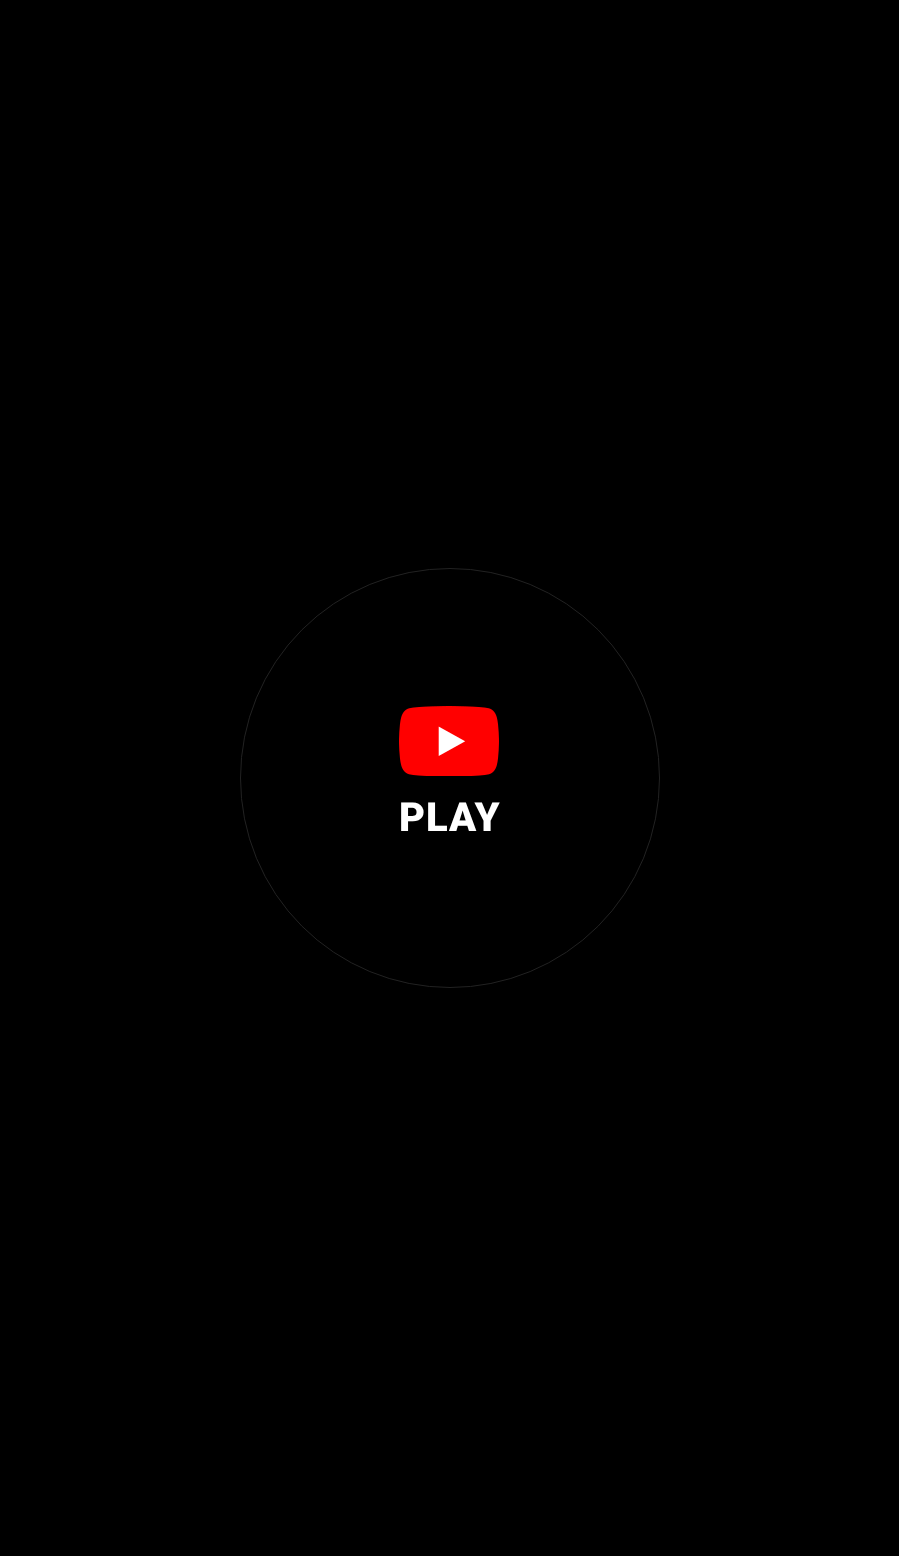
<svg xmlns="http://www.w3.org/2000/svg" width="899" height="1556">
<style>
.a{font:900 40px Roboto;letter-spacing:1px;fill:#fff}
</style>
<rect width="100%" height="100%" fill="#000"/>
<circle fill="none" stroke="#222" cx="450" cy="778" r="209.5"/>
<image href="1.png" x="399" y="706" width="100" height="70"/>
<text class="a" x="399" y="831">PLAY</text>
</svg>
